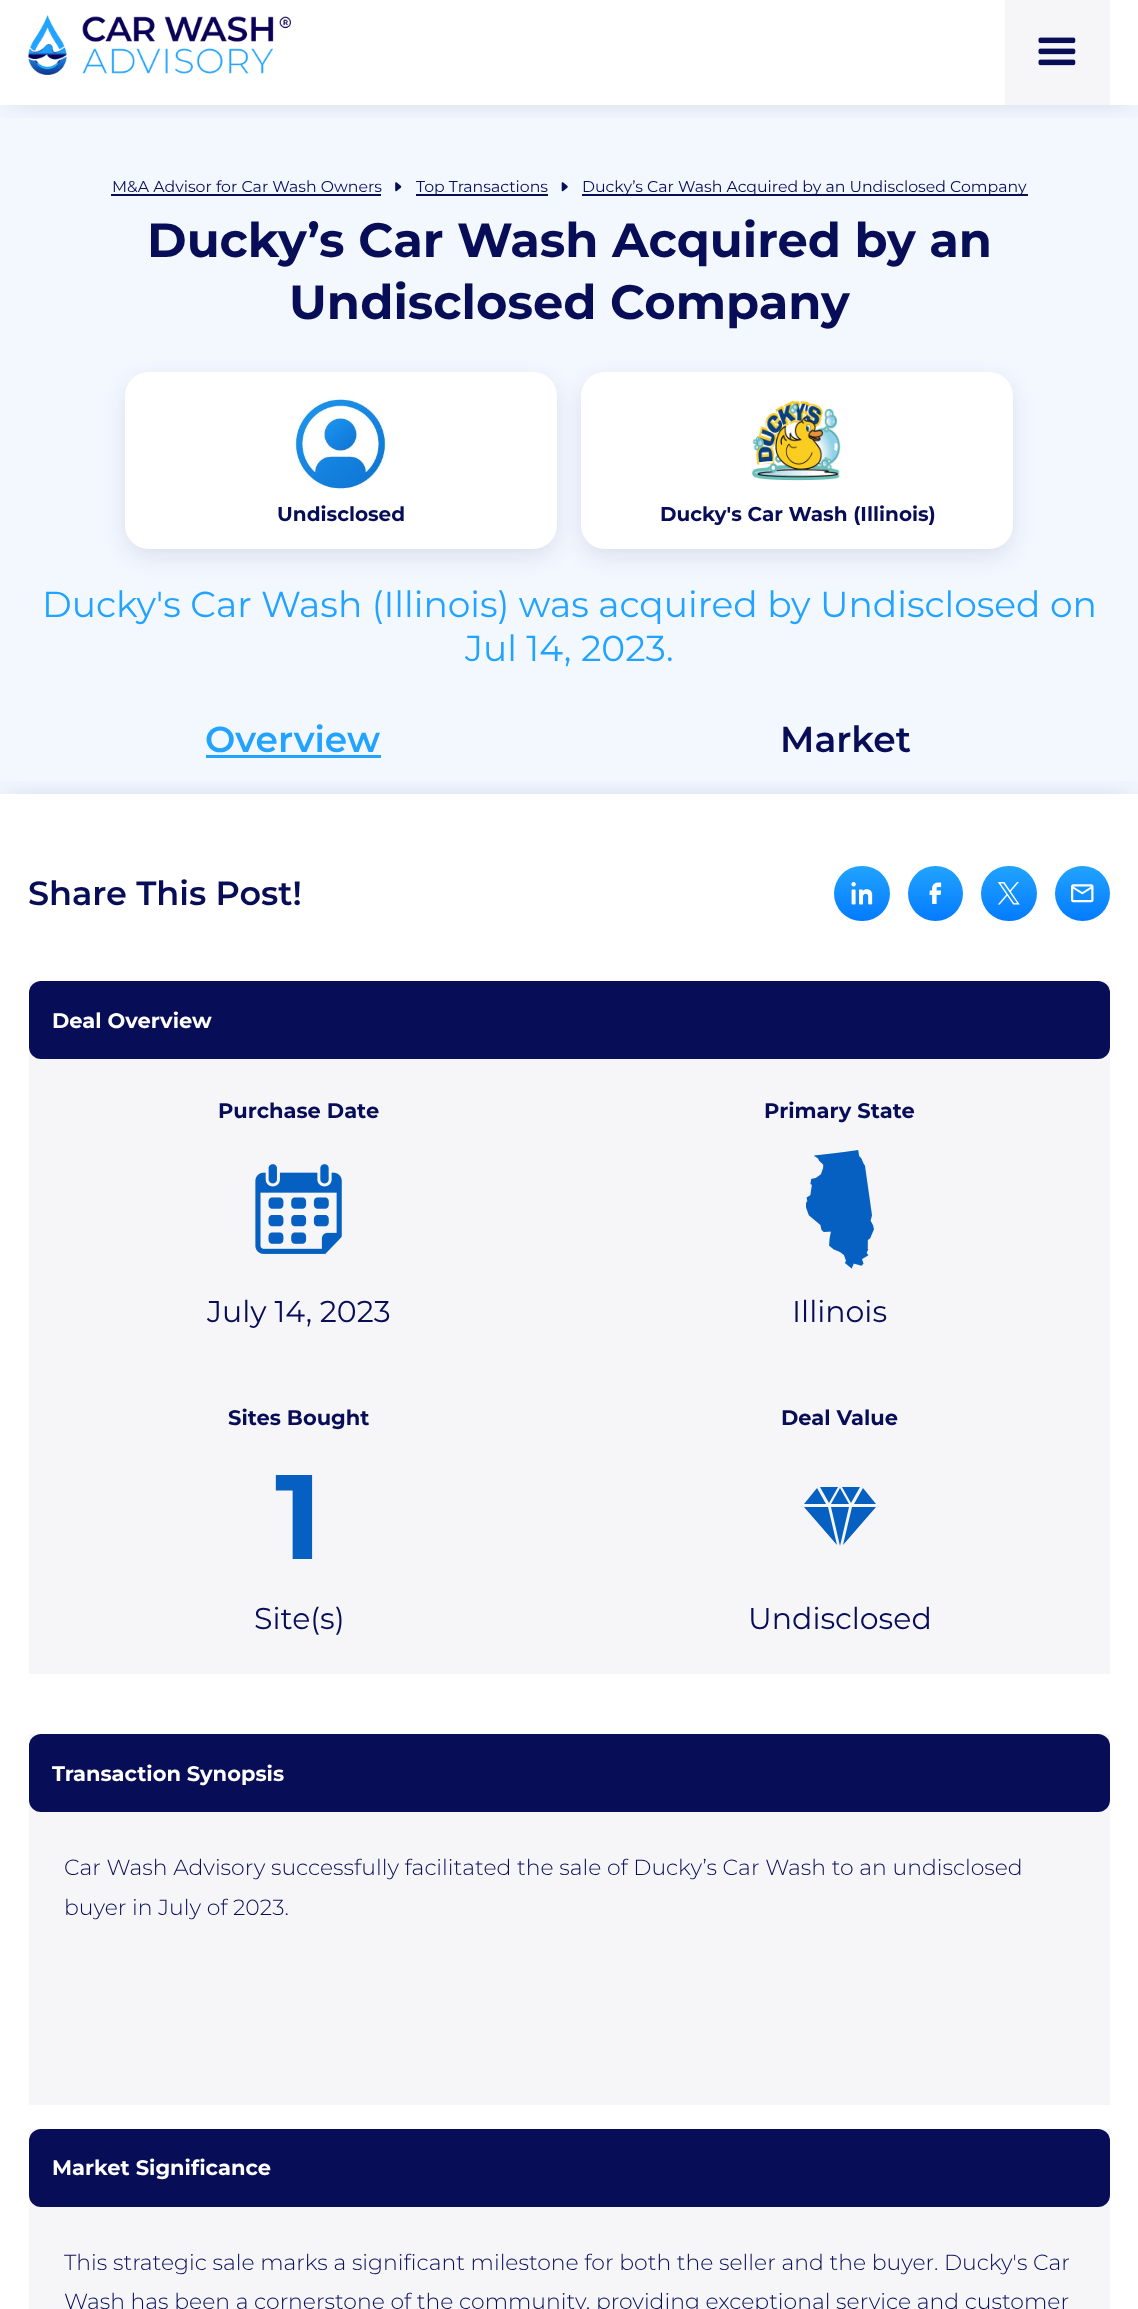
<svg xmlns="http://www.w3.org/2000/svg" width="1138" height="2309">
<style>
.a{font:15.75px Montserrat;fill:#080d57}
.b{font:bold 48px Montserrat;fill:#080d57}
.c{font:bold 20px Montserrat;fill:#080d57}
.d{font:36px Montserrat;fill:#22a3ff}
.e{font:600 36px Montserrat;fill:#22a3ff}
.f{font:600 36px Montserrat;fill:#080d57}
.g{font:600 33.5px Montserrat;fill:#080d57}
.h{font:bold 21px Montserrat;fill:#fff}
.i{font:bold 21px Montserrat;fill:#080d57}
.j{font:30px Montserrat;fill:#080d57}
.k{font:bold 120px Montserrat;fill:#0560c1}
.l{font:300 21.95px Montserrat;fill:#080d57}
</style>
<defs>
<clipPath id="clip1"><path d="M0 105h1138v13H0z"/></clipPath>
<clipPath id="clip2"><path d="M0 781h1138v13H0z"/></clipPath>
<linearGradient id="g1" gradientUnits="userSpaceOnUse" x1="862" y1="866" x2="862" y2="921"><stop offset="0" stop-color="#22a3ff"/><stop offset="1" stop-color="#037bff"/></linearGradient>
<linearGradient id="g2" gradientUnits="userSpaceOnUse" x1="935" y1="866" x2="935" y2="921"><stop offset="0" stop-color="#22a3ff"/><stop offset="1" stop-color="#037bff"/></linearGradient>
<linearGradient id="g3" gradientUnits="userSpaceOnUse" x1="1009" y1="866" x2="1009" y2="921"><stop offset="0" stop-color="#22a3ff"/><stop offset="1" stop-color="#037bff"/></linearGradient>
<linearGradient id="g4" gradientUnits="userSpaceOnUse" x1="1082" y1="866" x2="1082" y2="921"><stop offset="0" stop-color="#22a3ff"/><stop offset="1" stop-color="#037bff"/></linearGradient>
</defs>
<rect width="100%" height="100%" fill="#fff"/>
<path fill="#f3f8ff" d="M0 105h1138v689H0z"/>
<g clip-path="url(#clip1)">
<path fill="#080d5726" filter="blur(15px)" d="M5 5h1129v96H5z"/>
</g>
<image href="1.png" x="28" y="15" width="263" height="60"/>
<path fill="#f6f6f9" d="M1005 0h105v105H1005z"/>
<image href="2.png" x="1038" y="37" width="38" height="29"/>
<path fill="#080d57" d="M111 194h270v2H111z"/>
<image href="3.png" x="395" y="182" width="7" height="10"/>
<path fill="#080d57" d="M416 194h132v2H416z"/>
<image href="4.png" x="561" y="182" width="7" height="10"/>
<path fill="#080d57" d="M582 194h446v2H582z"/>
<rect fill="#080d571a" filter="blur(11px)" x="125" y="380" width="432" height="177" rx="24"/>
<rect fill="#fff" x="125" y="372" width="432" height="177" rx="24"/>
<image href="5.png" x="293" y="396" width="94" height="94"/>
<rect fill="#080d571a" filter="blur(11px)" x="581" y="380" width="432" height="177" rx="24"/>
<rect fill="#fff" x="581" y="372" width="432" height="177" rx="24"/>
<image href="6.png" x="752" y="400" width="89" height="81"/>
<g clip-path="url(#clip2)">
<path fill="#080d5726" filter="blur(15px)" d="M5 798h1129v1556H5z"/>
</g>
<path fill="#22a3ff" d="M206 755h175v3H206z"/>
<rect fill="url(#g1)" x="834" y="866" width="56" height="55" rx="27.5"/>
<image href="7.png" x="851" y="882" width="22" height="23"/>
<circle fill="url(#g2)" cx="935.5" cy="893.5" r="27.5"/>
<image href="8.png" x="929" y="882" width="13" height="22"/>
<rect fill="url(#g3)" x="981" y="866" width="56" height="55" rx="27.5"/>
<image href="9.png" x="998" y="882" width="22" height="23"/>
<circle fill="url(#g4)" cx="1082.5" cy="893.5" r="27.5"/>
<image href="10.png" x="1071" y="884" width="23" height="19"/>
<path fill="#f6f6f9" d="M29 981h1081v693H29z"/>
<rect fill="#080d57" x="29" y="981" width="1081" height="78" rx="12"/>
<image href="11.png" x="255" y="1164" width="87" height="90"/>
<image href="12.png" x="806" y="1150" width="68" height="119"/>
<path fill="#0560c1" d="M829 1503l-9-16h18zm-25 4l33 38l-9-38zm13-19l-13 16h22zm43-1h-18l9 16zm-11 17l-9-16l-9 16zm-6 41l33-38h-24zm-12-38l9 39l9-39zm45-3l-13-16l-9 16z"/>
<path fill="#f6f6f9" d="M29 1734h1081v371H29z"/>
<rect fill="#080d57" x="29" y="1734" width="1081" height="78" rx="12"/>
<path fill="#f6f6f9" d="M29 2129h1081v180H29z"/>
<rect fill="#080d57" x="29" y="2129" width="1081" height="78" rx="12"/>
<text class="a" x="112" y="192">M&amp;A Advisor for Car Wash Owners</text>
<text class="a" x="416" y="192">Top Transactions</text>
<text class="a" x="582" y="192">Ducky’s Car Wash Acquired by an Undisclosed Company</text>
<text class="b" x="147" y="257">Ducky’s Car Wash Acquired by an</text>
<text class="b" x="289" y="319">Undisclosed Company</text>
<text class="c" x="277" y="521">Undisclosed</text>
<text class="c" x="660" y="521">Ducky's Car Wash (Illinois)</text>
<text class="d" x="42" y="617">Ducky's Car Wash (Illinois) was acquired by Undisclosed on</text>
<text class="d" x="465" y="661">Jul 14, 2023.</text>
<text class="e" x="205" y="752">Overview</text>
<text class="f" x="780" y="752">Market</text>
<text class="g" x="28" y="905">Share This Post!</text>
<text class="h" x="52" y="1028">Deal Overview</text>
<text class="i" x="218" y="1118">Purchase Date</text>
<text class="j" x="207" y="1322">July 14, 2023</text>
<text class="i" x="764" y="1118">Primary State</text>
<text class="j" x="792" y="1322">Illinois</text>
<text class="i" x="228" y="1425">Sites Bought</text>
<text class="k" x="275" y="1559">1</text>
<text class="j" x="254" y="1629">Site(s)</text>
<text class="i" x="781" y="1425">Deal Value</text>
<text class="j" x="748" y="1629">Undisclosed</text>
<text class="h" x="52" y="1781">Transaction Synopsis</text>
<text class="l" x="64" y="1875">Car Wash Advisory successfully facilitated the sale of Ducky’s Car Wash to an undisclosed</text>
<text class="l" x="64" y="1915">buyer in July of 2023.</text>
<text class="h" x="52" y="2175">Market Significance</text>
<text class="l" x="64" y="2270">This strategic sale marks a significant milestone for both the seller and the buyer. Ducky's Car</text>
<text class="l" x="64" y="2309">Wash has been a cornerstone of the community, providing exceptional service and customer</text>
</svg>
